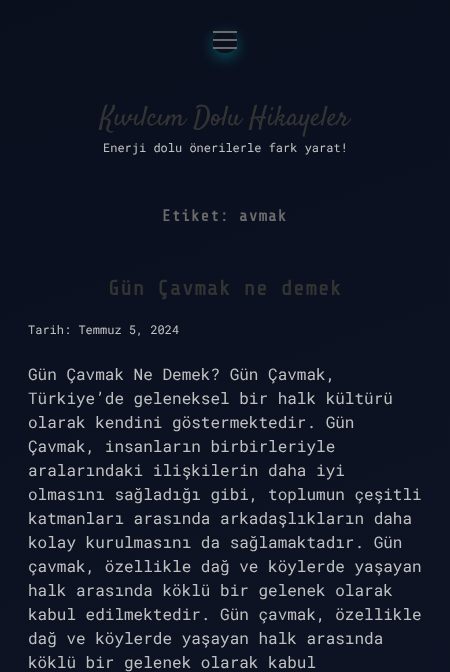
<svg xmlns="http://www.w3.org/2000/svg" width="450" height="672">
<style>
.a{font:28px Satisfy;fill:#333}
.b{font:12px Roboto Mono;fill:#c0c0c0}
.c{font:bold 16px Share Tech Mono;letter-spacing:1px;fill:#6b6b6b}
.d{font:bold 21px Share Tech Mono;letter-spacing:1px;fill:#333}
.e{font:16px Roboto Mono;fill:#c0c0c0}
</style>
<defs>
<linearGradient id="g1" gradientUnits="userSpaceOnUse" x1="-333" y1="116" x2="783" y2="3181"><stop offset="0" stop-color="#0a0f1e"/><stop offset="0.5" stop-color="#10182a"/><stop offset="1" stop-color="#141f38"/></linearGradient>
<clipPath id="clip1"><path d="M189 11h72v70h-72zm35 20h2c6 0 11 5 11 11c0 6-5 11-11 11h-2c-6 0-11-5-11-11c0-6 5-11 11-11z" clip-rule="evenodd"/></clipPath>
</defs>
<rect width="100%" height="100%" fill="#fff"/>
<path fill="url(#g1)" d="M0 0h450v672H0z"/>
<g clip-path="url(#clip1)">
<rect fill="#00ffff4d" filter="blur(7.5px)" x="213" y="35" width="24" height="22" rx="11"/>
</g>
<path fill="#6b6b6b" d="M213 31h24v2H213z"/>
<path fill="#6b6b6b" d="M213 39h24v2H213z"/>
<path fill="#6b6b6b" d="M213 47h24v2H213z"/>
<text class="a" x="100" y="125">Kıvılcım Dolu Hikayeler</text>
<text class="b" x="103" y="152">Enerji dolu önerilerle fark yarat!</text>
<text class="c" x="162" y="221">Etiket: avmak</text>
<text class="d" x="108" y="295">Gün Çavmak ne demek</text>
<text class="b" x="28" y="334">Tarih: Temmuz 5, 2024</text>
<text class="e" x="28" y="380">Gün Çavmak Ne Demek? Gün Çavmak,</text>
<text class="e" x="28" y="404">Türkiye’de geleneksel bir halk kültürü</text>
<text class="e" x="28" y="428">olarak kendini göstermektedir. Gün</text>
<text class="e" x="28" y="452">Çavmak, insanların birbirleriyle</text>
<text class="e" x="28" y="476">aralarındaki ilişkilerin daha iyi</text>
<text class="e" x="28" y="500">olmasını sağladığı gibi, toplumun çeşitli</text>
<text class="e" x="28" y="524">katmanları arasında arkadaşlıkların daha</text>
<text class="e" x="28" y="548">kolay kurulmasını da sağlamaktadır. Gün</text>
<text class="e" x="28" y="572">çavmak, özellikle dağ ve köylerde yaşayan</text>
<text class="e" x="28" y="596">halk arasında köklü bir gelenek olarak</text>
<text class="e" x="28" y="620">kabul edilmektedir. Gün çavmak, özellikle</text>
<text class="e" x="28" y="644">dağ ve köylerde yaşayan halk arasında</text>
<text class="e" x="28" y="668">köklü bir gelenek olarak kabul</text>
</svg>
